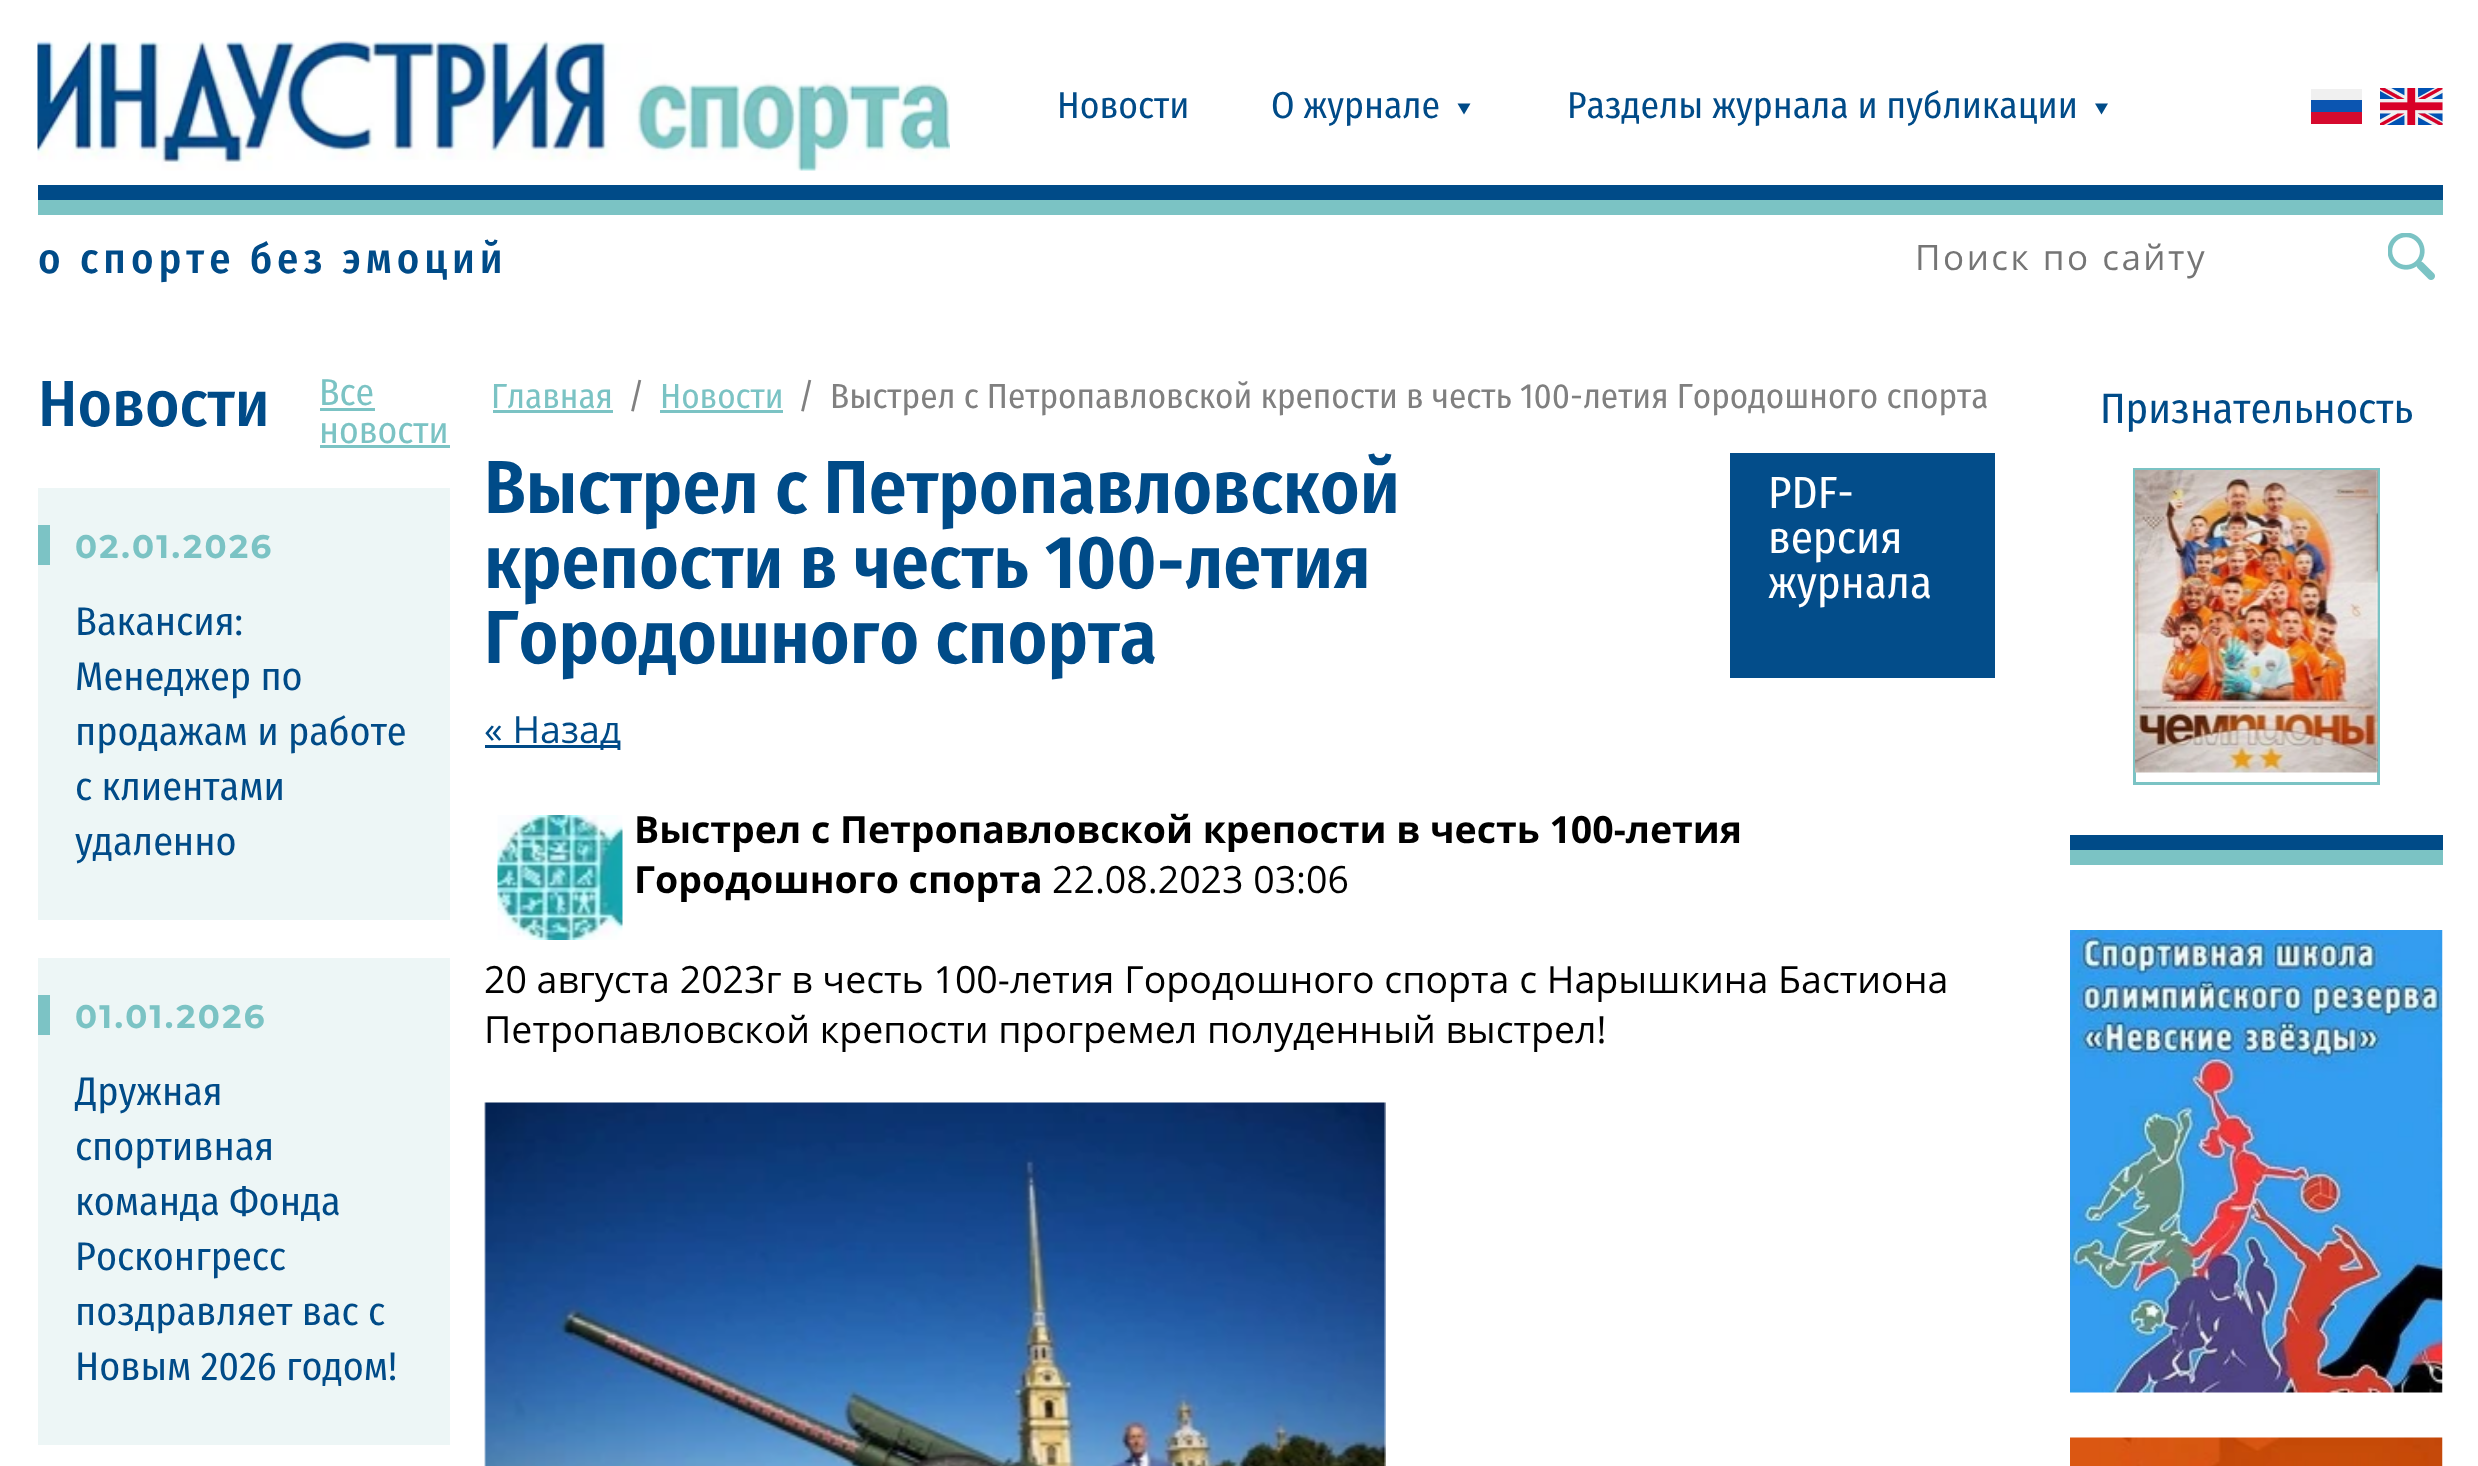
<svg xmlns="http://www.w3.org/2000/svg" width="2478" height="1466">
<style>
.a{font:37.5px Fira Sans Condensed;fill:#004b88}
.b{font:500 42.5px Fira Sans Condensed;letter-spacing:5px;fill:#004b88}
.c{font:35px Open Sans;letter-spacing:2.5px;fill:#757575}
.d{font:500 65px Fira Sans Condensed;fill:#004b88}
.e{font:37.5px Fira Sans Condensed;fill:#7bc3c4}
.f{font:bold 32.5px Montserrat;letter-spacing:2.5px;fill:#7bc3c4}
.g{font:40px Fira Sans Condensed;fill:#004b88}
.h{font:35px Fira Sans Condensed;fill:#7bc3c4}
.i{font:35px Fira Sans Condensed;fill:#808080}
.j{font:600 75px Fira Sans Condensed;fill:#004b88}
.k{font:45px Fira Sans Condensed;fill:#fff}
.l{font:37.5px Open Sans;fill:#004b88}
.m{font:bold 37.5px Open Sans;fill:#000}
.n{font:37.5px Open Sans;fill:#000}
.o{font:42.5px Fira Sans Condensed;fill:#004b88}
</style>
<rect width="100%" height="100%" fill="#fff"/>
<path fill="#004b88" d="M38 185h2405v15H38z"/>
<image href="1.png" x="37" y="40" width="913" height="131"/>
<path fill="#004b88" d="M1470.5 103.5l-6.5 11l-6.5-11z"/>
<path fill="#004b88" d="M2108 103.5l-6.5 11l-6.5-11z"/>
<path fill="#f0f0f0" d="M2311 89h51v11H2311z"/>
<path fill="#0b55b1" d="M2311 100h51v12H2311z"/>
<path fill="#d60a2e" d="M2311 112h51v12H2311z"/>
<image href="2.png" x="2380" y="88" width="63" height="37"/>
<path fill="#7bc3c4" d="M38 200h2405v15H38z"/>
<image href="3.png" x="2388" y="233" width="47" height="47"/>
<path fill="#7bc3c4" d="M320 408h55v3H320z"/>
<path fill="#7bc3c4" d="M320 445h130v3H320z"/>
<path fill="#edf6f6" d="M38 488h412v432H38z"/>
<path fill="#7cc3c5" d="M38 525h12v40H38z"/>
<path fill="#edf6f6" d="M38 958h412v487H38z"/>
<path fill="#7cc3c5" d="M38 995h12v40H38z"/>
<path fill="#7bc3c4" d="M493 410h120v3H493z"/>
<path fill="#7bc3c4" d="M660 410h123v3H660z"/>
<path fill="#034d8a" d="M1730 453h265v225H1730z"/>
<path fill="#004a87" d="M485 745h135v3H485z"/>
<image href="4.png" x="497" y="815" width="126" height="125"/>
<image href="5.png" x="484" y="1102" width="902" height="364"/>
<path fill="#004b88" d="M2070 835h373v15H2070z"/>
<path fill="none" stroke="#7bc3c4" stroke-width="3" d="M2134.5 469.5h244v314H2134.5z"/>
<image href="6.png" x="2135" y="470" width="243" height="303"/>
<path fill="#7bc3c4" d="M2070 850h373v15H2070z"/>
<image href="7.png" x="2070" y="930" width="373" height="463"/>
<image href="8.png" x="2070" y="1437" width="373" height="29"/>
<text class="a" x="1057" y="118">Новости</text>
<text class="a" x="1271" y="118">О журнале</text>
<text class="a" x="1567" y="118">Разделы журнала и публикации</text>
<text class="b" x="38" y="273">о спорте без эмоций</text>
<text class="c" x="1915" y="270">Поиск по сайту</text>
<text class="d" x="38" y="426">Новости</text>
<text class="e" x="319" y="405">Все</text>
<text class="e" x="319" y="443">новости</text>
<text class="f" x="75" y="558">02.01.2026</text>
<text class="g" x="75" y="635">Вакансия:</text>
<text class="g" x="75" y="690">Менеджер по</text>
<text class="g" x="75" y="745">продажам и работе</text>
<text class="g" x="75" y="800">с клиентами</text>
<text class="g" x="75" y="855">удаленно</text>
<text class="f" x="75" y="1028">01.01.2026</text>
<text class="g" x="75" y="1105">Дружная</text>
<text class="g" x="75" y="1160">спортивная</text>
<text class="g" x="75" y="1215">команда Фонда</text>
<text class="g" x="75" y="1270">Росконгресс</text>
<text class="g" x="75" y="1325">поздравляет вас с</text>
<text class="g" x="75" y="1380">Новым 2026 годом!</text>
<text class="h" x="491" y="408">Главная</text>
<text class="i" x="628" y="408">/</text>
<text class="h" x="660" y="408">Новости</text>
<text class="i" x="798" y="408">/</text>
<text class="i" x="830" y="408">Выстрел с Петропавловской крепости в честь 100-летия Городошного спорта</text>
<text class="j" x="484" y="513">Выстрел с Петропавловской</text>
<text class="j" x="484" y="588">крепости в честь 100-летия</text>
<text class="j" x="484" y="663">Городошного спорта</text>
<text class="k" x="1768" y="508">PDF-</text>
<text class="k" x="1768" y="553">версия</text>
<text class="k" x="1768" y="598">журнала</text>
<text class="l" x="484" y="743">« Назад</text>
<text class="m" x="634" y="843">Выстрел с Петропавловской крепости в честь 100-летия</text>
<text class="m" x="634" y="893">Городошного спорта</text>
<text class="n" x="1052" y="893">22.08.2023 03:06</text>
<text class="n" x="484" y="993">20 августа 2023г в честь 100-летия Городошного спорта с Нарышкина Бастиона</text>
<text class="n" x="484" y="1043">Петропавловской крепости прогремел полуденный выстрел!</text>
<text class="o" x="2100" y="423">Признательность</text>
</svg>
